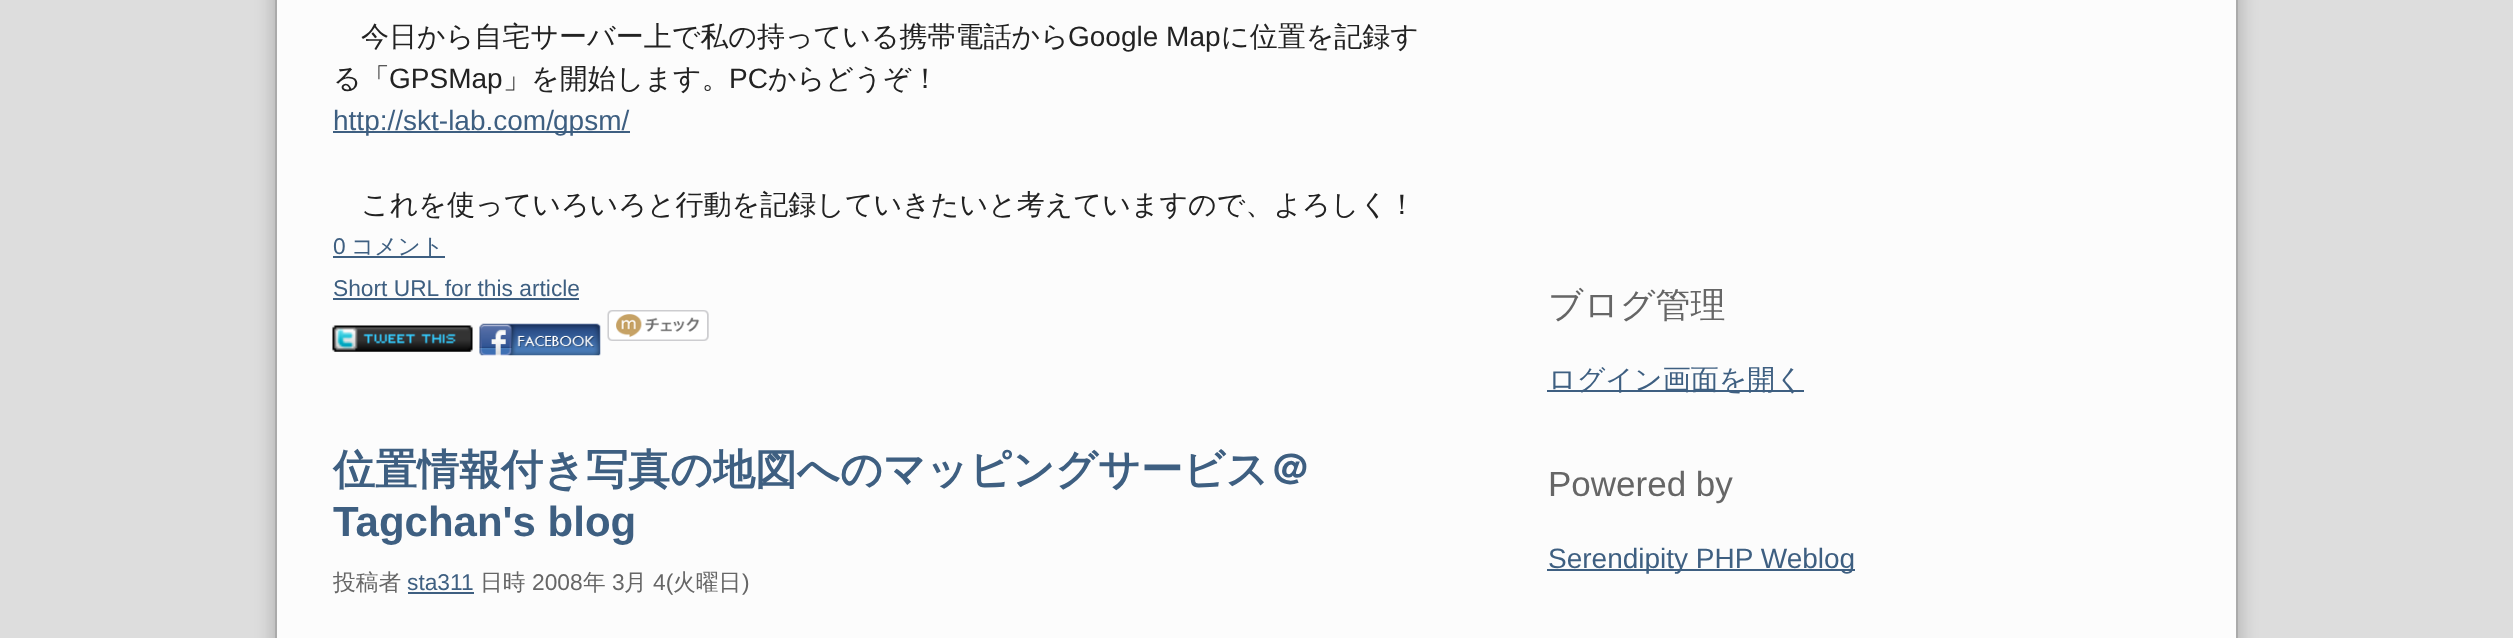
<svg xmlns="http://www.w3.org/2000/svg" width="2513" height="638">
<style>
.a{font:500 28px WenQuanYi Zen Hei;fill:#222}
.b{font:28px Liberation Sans;fill:#222}
.c{font:28px Liberation Sans;fill:#3e5f81}
.d{font:22.75px Liberation Sans;fill:#3e5f81}
.e{font:500 22.75px WenQuanYi Zen Hei;fill:#3e5f81}
.f{font:bold 42px WenQuanYi Zen Hei;fill:#3e5f81}
.g{font:bold 42px Liberation Sans;fill:#3e5f81}
.h{font:500 22.75px WenQuanYi Zen Hei;fill:#666}
.i{font:22.75px Liberation Sans;fill:#666}
.j{font:500 35px WenQuanYi Zen Hei;fill:#666}
.k{font:500 28px WenQuanYi Zen Hei;fill:#3e5f81}
.l{font:35px Liberation Sans;fill:#666}
</style>
<rect width="100%" height="100%" fill="#ddd"/>
<path fill="#00000033" filter="blur(9px)" d="M273 -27h1967v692H273z"/>
<path fill="#fcfcfc" stroke="#aaa" stroke-width="2" d="M276 -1h1961v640H276z"/>
<path fill="#3e5f81" d="M333 131h136v2H333z"/>
<path fill="#3e5f81" d="M469 131h161v2H469z"/>
<path fill="#3e5f81" d="M333 256h112v2H333z"/>
<path fill="#3e5f81" d="M333 298h246v2H333z"/>
<image href="1.png" x="332" y="325" width="141" height="27"/>
<image href="2.png" x="479" y="323" width="122" height="33"/>
<image href="3.png" x="607" y="310" width="102" height="31"/>
<path fill="#3e5f81" d="M408 592h66v2H408z"/>
<path fill="#3e5f81" d="M1547 390h257v2H1547z"/>
<path fill="#3e5f81" d="M1547 569h308v2H1547z"/>
<text class="a" x="361" y="46">今日から自宅サーバー上で私の持っている携帯電話から</text>
<text class="b" x="1068" y="46">Google Map</text>
<text class="a" x="1221" y="46">に位置を記録す</text>
<text class="a" x="333" y="88">る「</text>
<text class="b" x="389" y="88">GPSMap</text>
<text class="a" x="503" y="88">」を開始します。</text>
<text class="b" x="729" y="88">PC</text>
<text class="a" x="768" y="88">からどうぞ！</text>
<text class="c" x="333" y="130">http://skt-lab.com/</text>
<text class="c" x="553" y="130">gpsm/</text>
<text class="a" x="361" y="214">これを使っていろいろと行動を記録していきたいと考えていますので、よろしく！</text>
<text class="d" x="333" y="254">0</text>
<text class="e" x="351" y="254">コメント</text>
<text class="d" x="333" y="296">Short URL for this article</text>
<text class="f" x="333" y="484">位置情報付き写真の地図へのマッピングサービス＠</text>
<text class="g" x="333" y="536">Tagchan's blog</text>
<text class="h" x="333" y="590">投稿者</text>
<text class="d" x="407" y="590">sta311</text>
<text class="h" x="480" y="590">日時</text>
<text class="i" x="532" y="590">2008</text>
<text class="h" x="583" y="590">年</text>
<text class="i" x="612" y="590">3</text>
<text class="h" x="624" y="590">月</text>
<text class="i" x="653" y="590">4(</text>
<text class="h" x="673" y="590">火曜日</text>
<text class="i" x="742" y="590">)</text>
<text class="j" x="1548" y="317">ブログ管理</text>
<text class="k" x="1548" y="389">ログイン画面を開く</text>
<text class="l" x="1548" y="496">Powered by</text>
<text class="c" x="1548" y="568">Serendipity PHP Weblog</text>
</svg>
